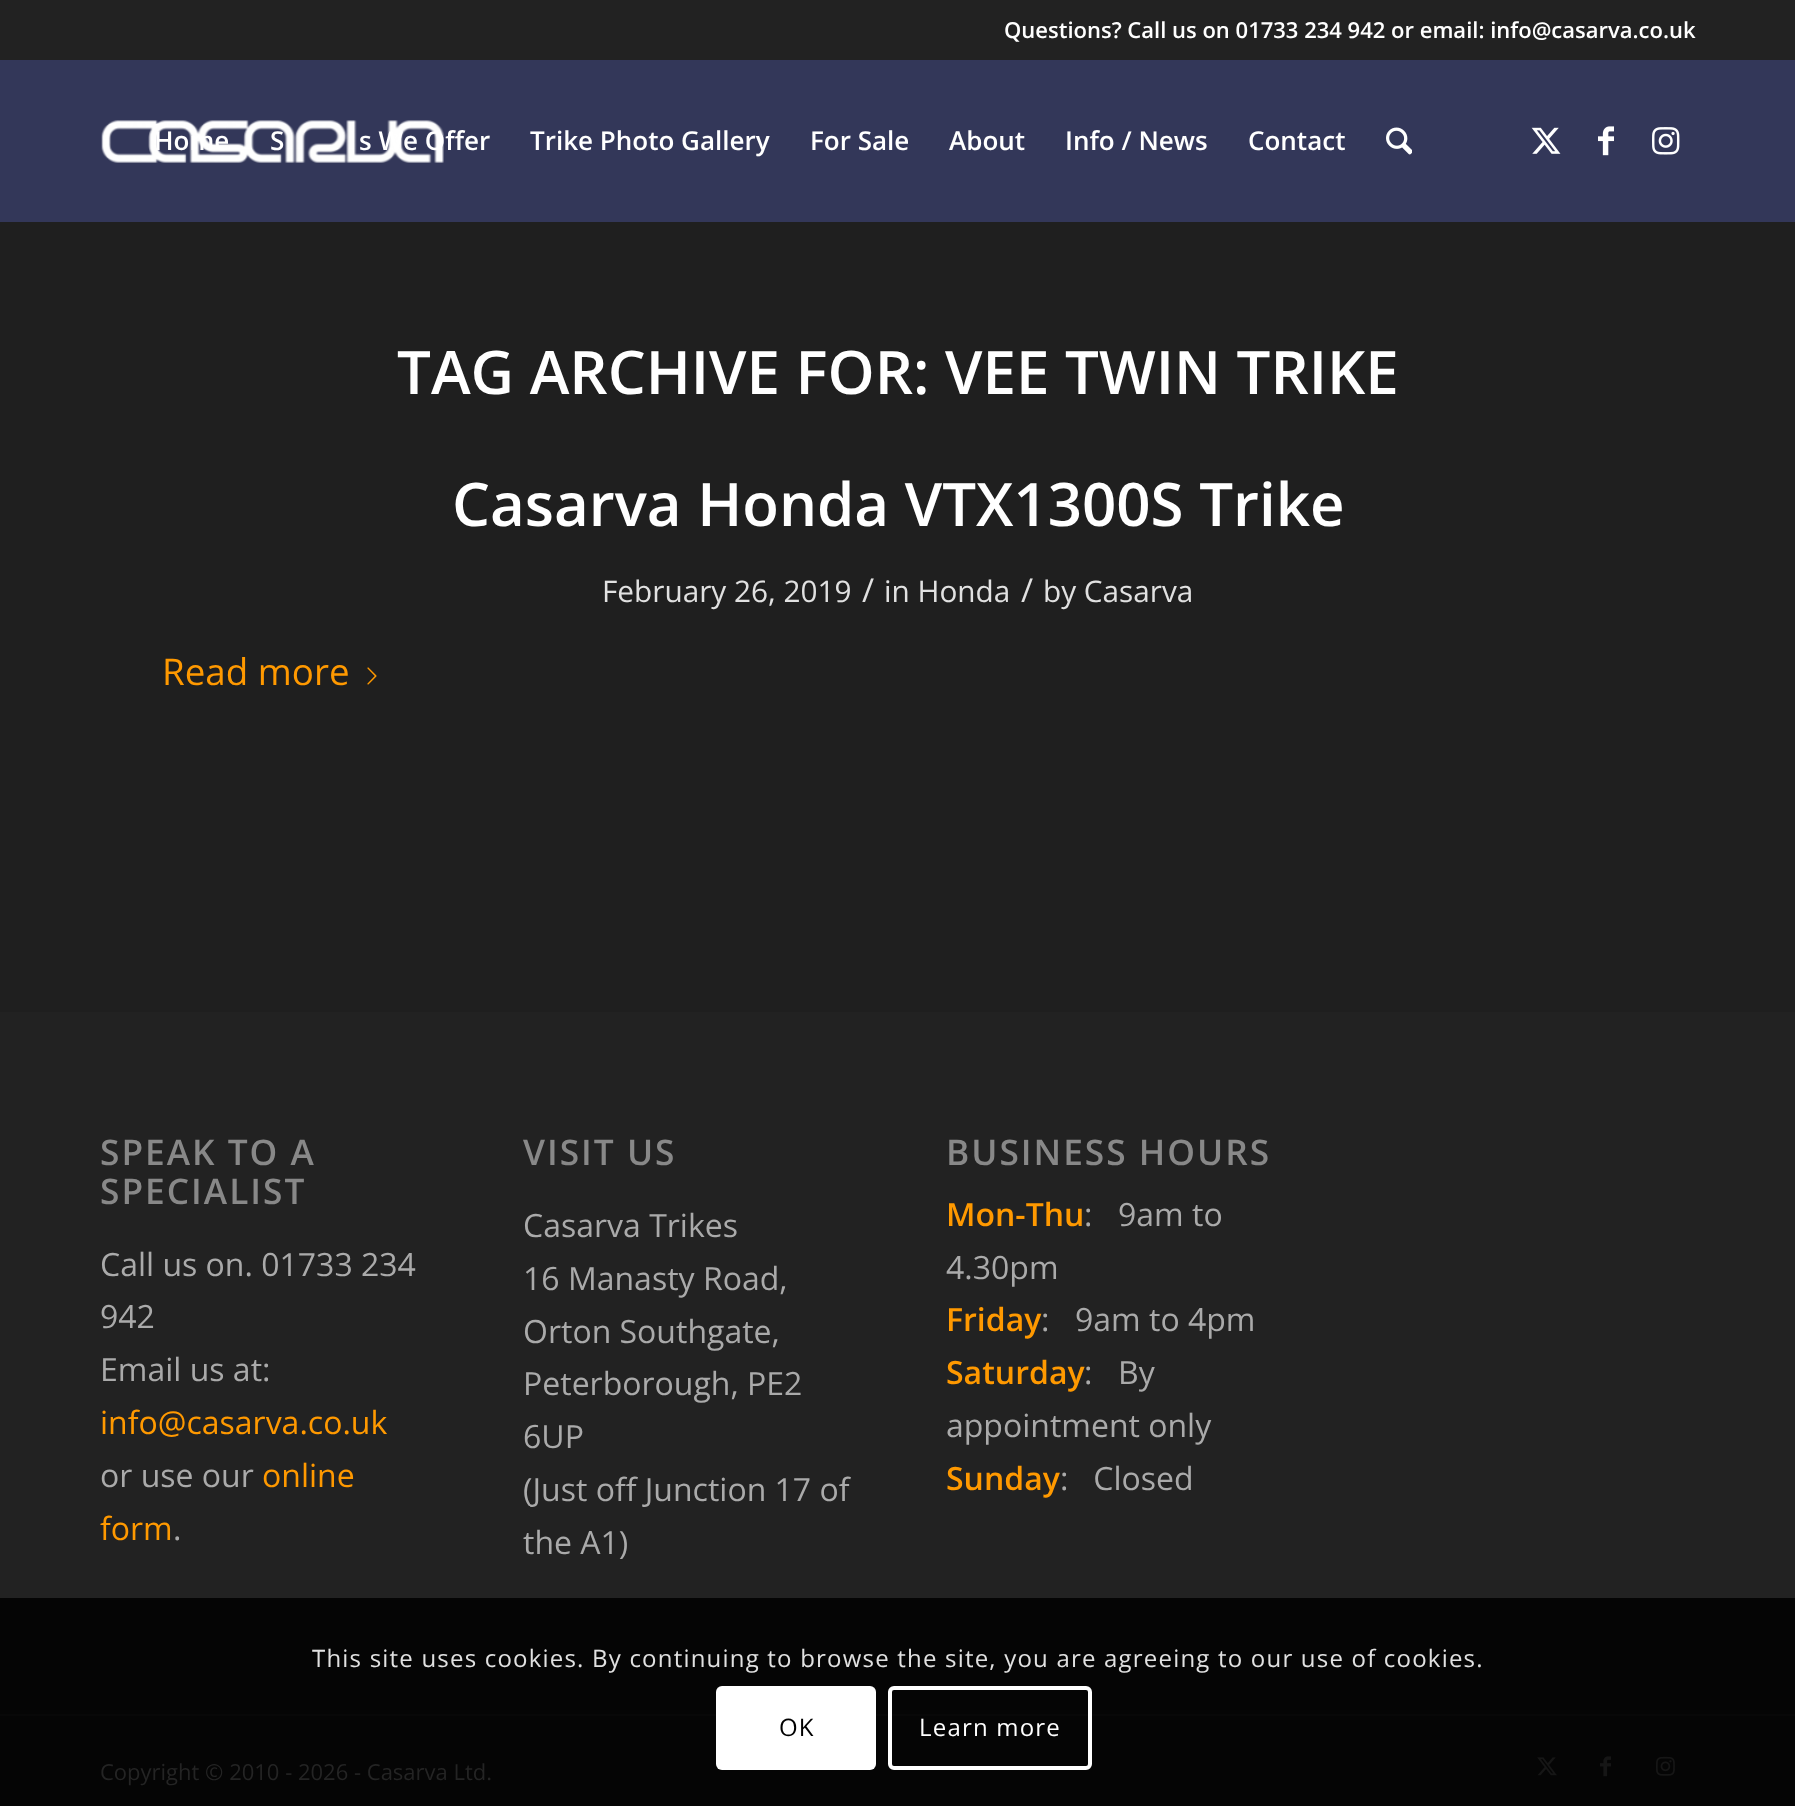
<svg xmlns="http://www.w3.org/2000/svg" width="1795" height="1806">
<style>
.a{font:600 22px Open Sans;fill:#fff}
.b{font:600 26px Open Sans;fill:#fff}
.c{font:600 60px Open Sans;fill:#fff}
.d{font:29.75px Open Sans;fill:#e1e1e1}
.e{font:33px Open Sans;fill:#e1e1e1}
.f{font:36.75px Open Sans;fill:#f90}
.g{font:600 35.25px Open Sans;letter-spacing:2px;fill:#888}
.h{font:32px Open Sans;fill:#aaa}
.i{font:32px Open Sans;fill:#f90}
.j{font:600 32px Open Sans;fill:#f90}
.k{font:22px Open Sans;fill:#242424}
.l{font:24px Open Sans;letter-spacing:1.2px;fill:#e1e1e1}
.m{font:24px Open Sans;letter-spacing:1.2px;fill:#000}
.n{font:24px Open Sans;letter-spacing:1.2px;fill:#fff}
</style>
<rect width="100%" height="100%" fill="#1f1f1f"/>
<path fill="#222" d="M0 0h1795v60H0z"/>
<path fill="#333759" d="M0 60h1795v162H0z"/>
<image href="1.png" x="101" y="120" width="343" height="43"/>
<image href="2.png" x="1386" y="127" width="26" height="28"/>
<image href="3.png" x="1531" y="127" width="30" height="27"/>
<image href="4.png" x="1598" y="126" width="16" height="30"/>
<image href="5.png" x="1652" y="127" width="28" height="28"/>
<image href="6.png" x="367" y="667" width="10" height="18"/>
<path fill="#222" d="M0 1012h1795v586H0z"/>
<path fill="#050505" d="M0 1598h1795v116H0z"/>
<path fill="#050505" d="M0 1716h1795v90H0z"/>
<path fill="#080808" d="M0 1714h1795v2H0z"/>
<image href="7.png" x="1537" y="1757" width="20" height="19"/>
<image href="8.png" x="1600" y="1756" width="11" height="21"/>
<image href="9.png" x="1656" y="1756" width="19" height="20"/>
<rect fill="#fff" x="716" y="1686" width="160" height="84" rx="6"/>
<rect fill="none" stroke="#fff" stroke-width="4" x="890" y="1688" width="200" height="80" rx="4"/>
<text class="a" x="1004" y="38">Questions? Call us on 01733 234 942 or email: info@casarva.co.uk</text>
<text class="b" x="154" y="150">Home</text>
<text class="b" x="270" y="150">S</text>
<text class="b" x="359" y="150">s We Offer</text>
<text class="b" x="530" y="150">Trike Photo Gallery</text>
<text class="b" x="810" y="150">For Sale</text>
<text class="b" x="949" y="150">About</text>
<text class="b" x="1065" y="150">Info / News</text>
<text class="b" x="1248" y="150">Contact</text>
<text class="c" x="397" y="394">TAG ARCHIVE FOR: VEE TWIN TRIKE</text>
<text class="c" x="452" y="526">Casarva Honda VTX1300S Trike</text>
<text class="d" x="602" y="602">February 26, 2019</text>
<text class="e" x="862" y="602">/</text>
<text class="d" x="884" y="602">in Honda</text>
<text class="e" x="1021" y="602">/</text>
<text class="d" x="1043" y="602">by Casarva</text>
<text class="f" x="162" y="685">Read more</text>
<text class="g" x="100" y="1165">SPEAK TO A</text>
<text class="g" x="100" y="1204">SPECIALIST</text>
<text class="h" x="100" y="1276">Call us on. 01733 234</text>
<text class="h" x="100" y="1328">942</text>
<text class="h" x="100" y="1381">Email us at:</text>
<text class="i" x="100" y="1434">info@casarva.co.uk</text>
<text class="h" x="100" y="1487">or use our</text>
<text class="i" x="262" y="1487">online</text>
<text class="i" x="100" y="1540">form</text>
<text class="h" x="173" y="1540">.</text>
<text class="g" x="523" y="1165">VISIT US</text>
<text class="h" x="523" y="1237">Casarva Trikes</text>
<text class="h" x="523" y="1290">16 Manasty Road,</text>
<text class="h" x="523" y="1343">Orton Southgate,</text>
<text class="h" x="523" y="1395">Peterborough, PE2</text>
<text class="h" x="523" y="1448">6UP</text>
<text class="h" x="523" y="1501">(Just off Junction 17 of</text>
<text class="h" x="523" y="1554">the A1)</text>
<text class="g" x="946" y="1165">BUSINESS HOURS</text>
<text class="j" x="946" y="1226">Mon-Thu</text>
<text class="h" x="1084" y="1226">:</text>
<text class="h" x="1118" y="1226">9am to</text>
<text class="h" x="946" y="1279">4.30pm</text>
<text class="j" x="946" y="1331">Friday</text>
<text class="h" x="1041" y="1331">:</text>
<text class="h" x="1075" y="1331">9am to 4pm</text>
<text class="j" x="946" y="1384">Saturday</text>
<text class="h" x="1084" y="1384">:</text>
<text class="h" x="1118" y="1384">By</text>
<text class="h" x="946" y="1437">appointment only</text>
<text class="j" x="946" y="1490">Sunday</text>
<text class="h" xml:space="preserve" x="1060" y="1490">:   Closed</text>
<text class="k" x="100" y="1780">Copyright © 2010 - 2026 - Casarva Ltd.</text>
<text class="l" x="312" y="1667">This site uses cookies. By continuing to browse the site, you are agreeing to our use of cookies.</text>
<text class="m" x="779" y="1736">OK</text>
<text class="n" x="919" y="1736">Learn more</text>
</svg>
